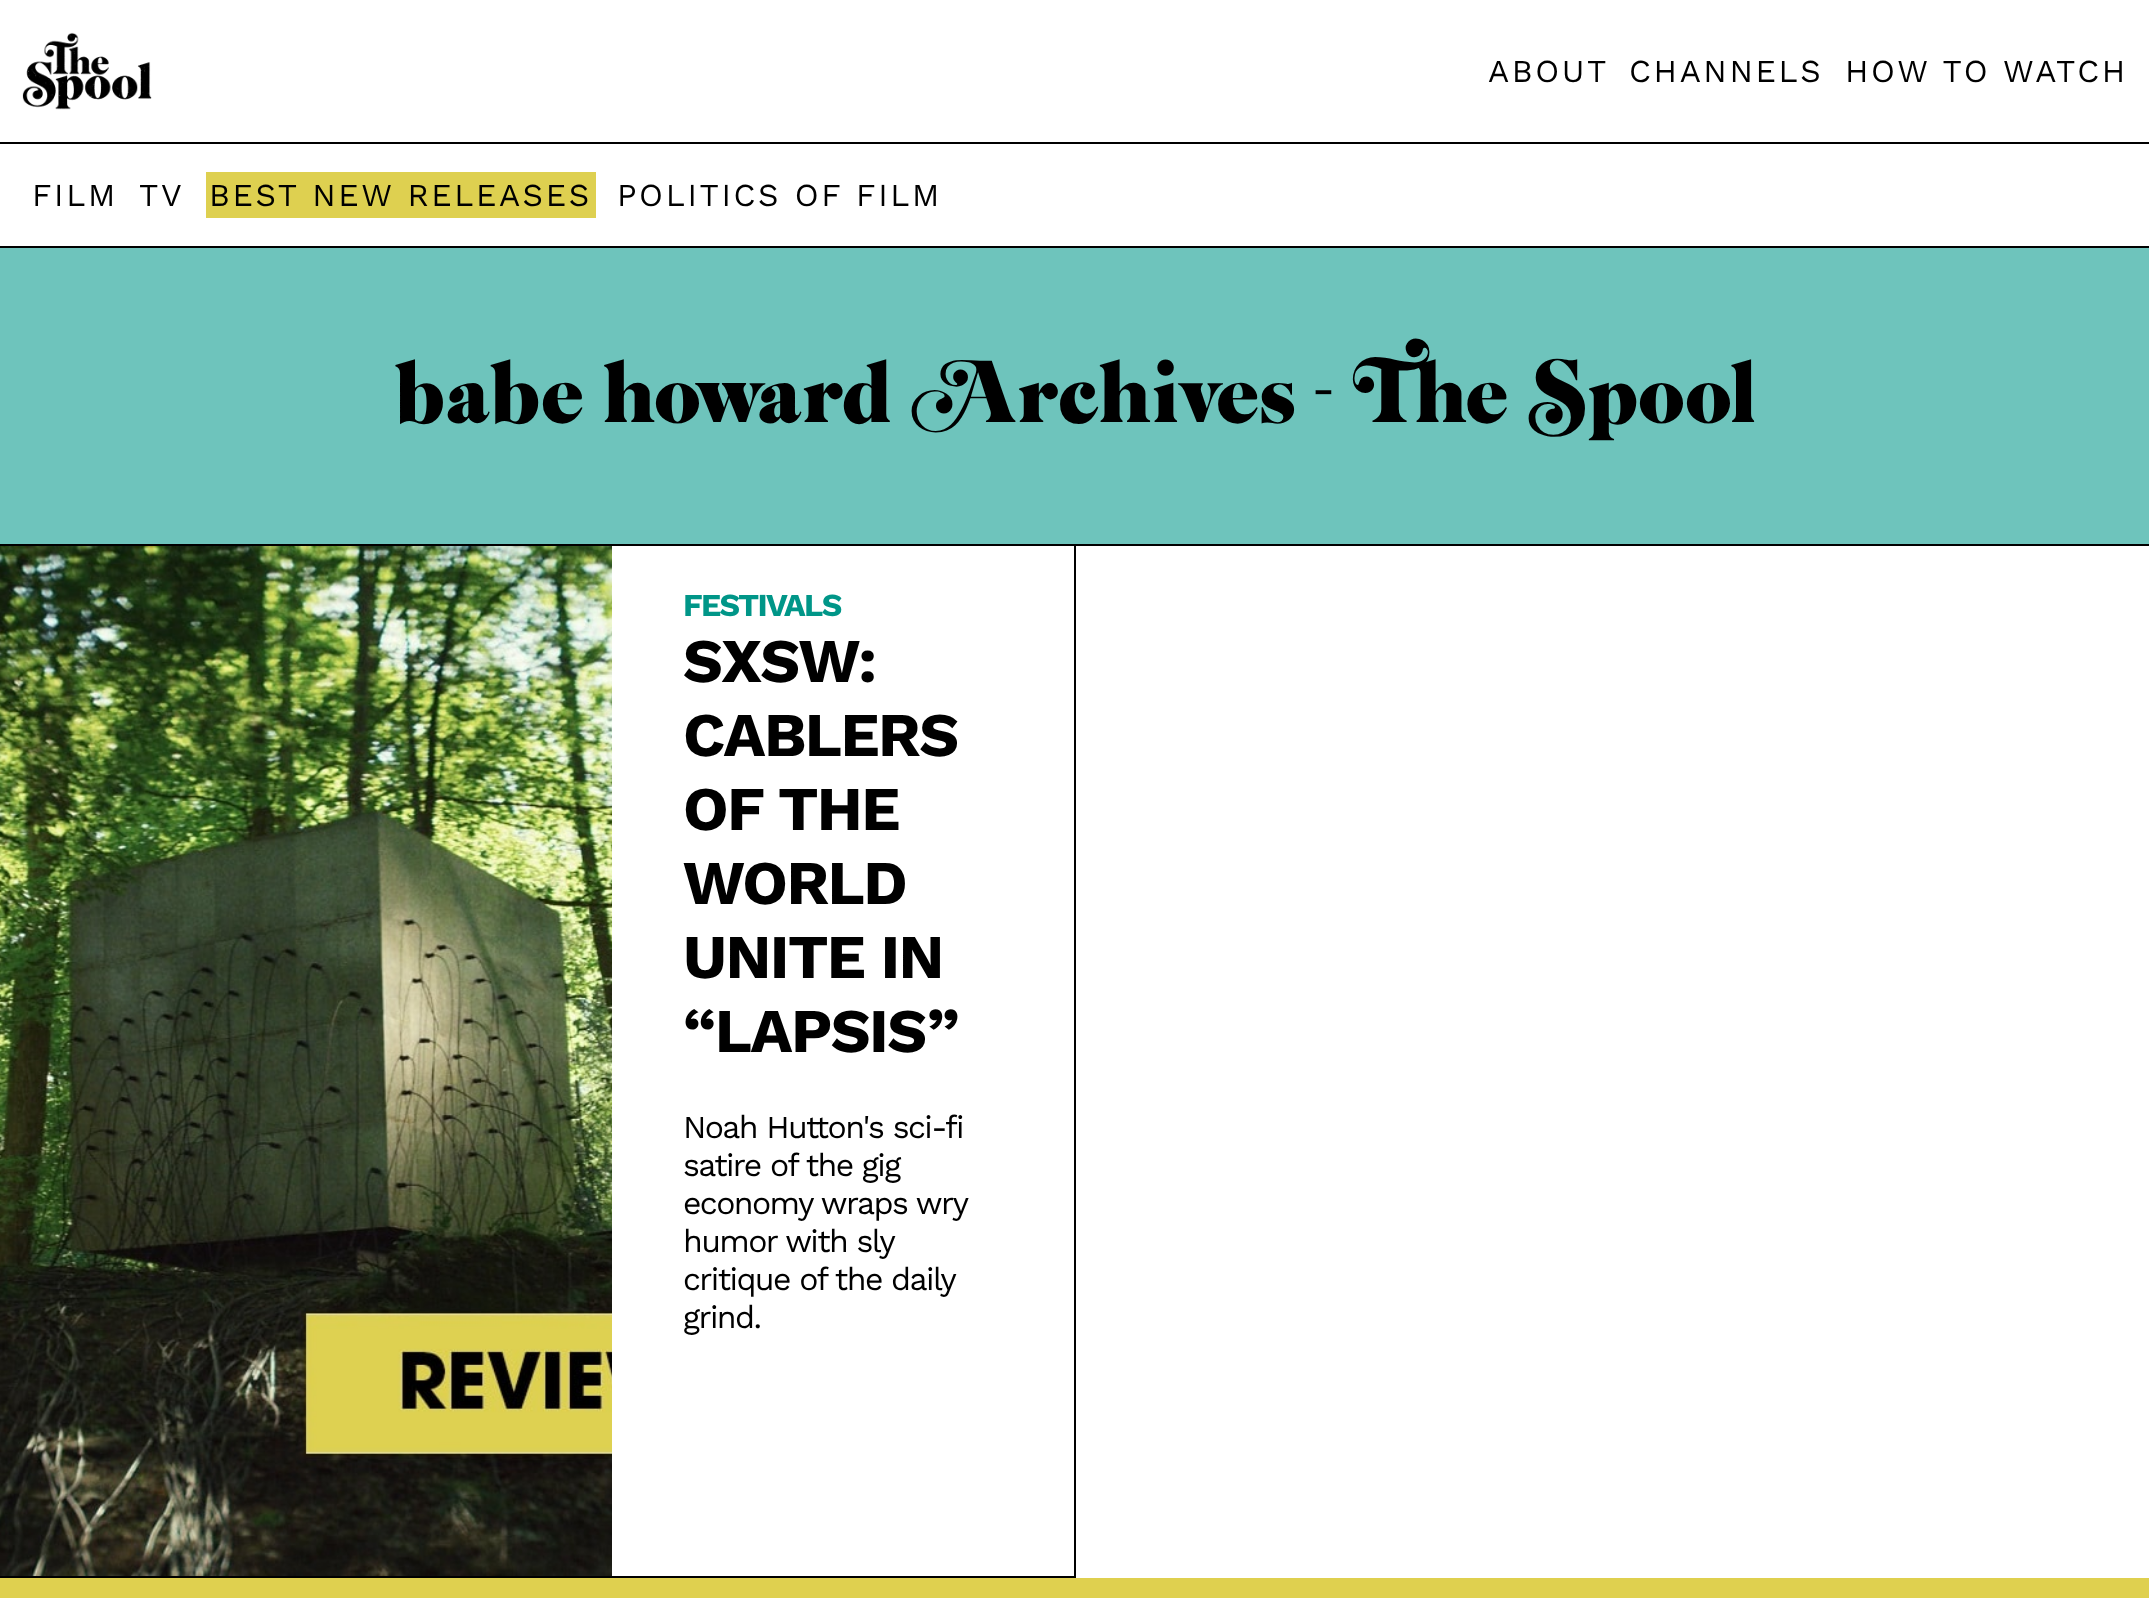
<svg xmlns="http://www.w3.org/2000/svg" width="2149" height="1598">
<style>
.a{font:32px Work Sans;letter-spacing:2.6px;fill:#000}
.b{font:116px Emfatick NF;fill:#000}
.c{font:bold 32px Work Sans;letter-spacing:-1.6px;fill:#009688}
.d{font:bold 62px Work Sans;letter-spacing:-1.6px;fill:#000}
.e{font:32px Work Sans;letter-spacing:-1.6px;fill:#000}
</style>
<rect width="100%" height="100%" fill="#fff"/>
<path fill="#000" d="M0 142h2149v2H0z"/>
<image href="1.png" x="22" y="32" width="130" height="78"/>
<path fill="#000" d="M0 246h2149v2H0z"/>
<path fill="#ded050" d="M206 172h390v46H206z"/>
<path fill="#6ec4bc" d="M0 248h2149v296H0z"/>
<path fill="#000" d="M0 544h2149v2H0z"/>
<path fill="#000" d="M1074 546h2v1032H1074z"/>
<path fill="#000" d="M0 1576h1076v2H0z"/>
<image href="2.png" x="0" y="546" width="612" height="1030"/>
<path fill="#dfd04f" d="M0 1578h2149v20H0z"/>
<text class="a" x="1488" y="82">ABOUT</text>
<text class="a" x="1629" y="82">CHANNELS</text>
<text class="a" x="1845" y="82">HOW TO WATCH</text>
<text class="a" x="32" y="206">FILM</text>
<text class="a" x="139" y="206">TV</text>
<text class="a" x="209" y="206">BEST NEW RELEASES</text>
<text class="a" x="617" y="206">POLITICS OF FILM</text>
<text class="b" x="394" y="422" word-spacing="-14">babe howard Archives - The Spool</text>
<text class="c" x="683" y="616">FESTIVALS</text>
<text class="d" x="683" y="682">SXSW:</text>
<text class="d" x="683" y="756">CABLERS</text>
<text class="d" x="683" y="830">OF THE</text>
<text class="d" x="683" y="904">WORLD</text>
<text class="d" x="683" y="978">UNITE IN</text>
<text class="d" x="683" y="1052">“LAPSIS”</text>
<text class="e" x="683" y="1138">Noah Hutton's sci-fi</text>
<text class="e" x="683" y="1176">satire of the gig</text>
<text class="e" x="683" y="1214">economy wraps wry</text>
<text class="e" x="683" y="1252">humor with sly</text>
<text class="e" x="683" y="1290">critique of the daily</text>
<text class="e" x="683" y="1328">grind.</text>
</svg>
